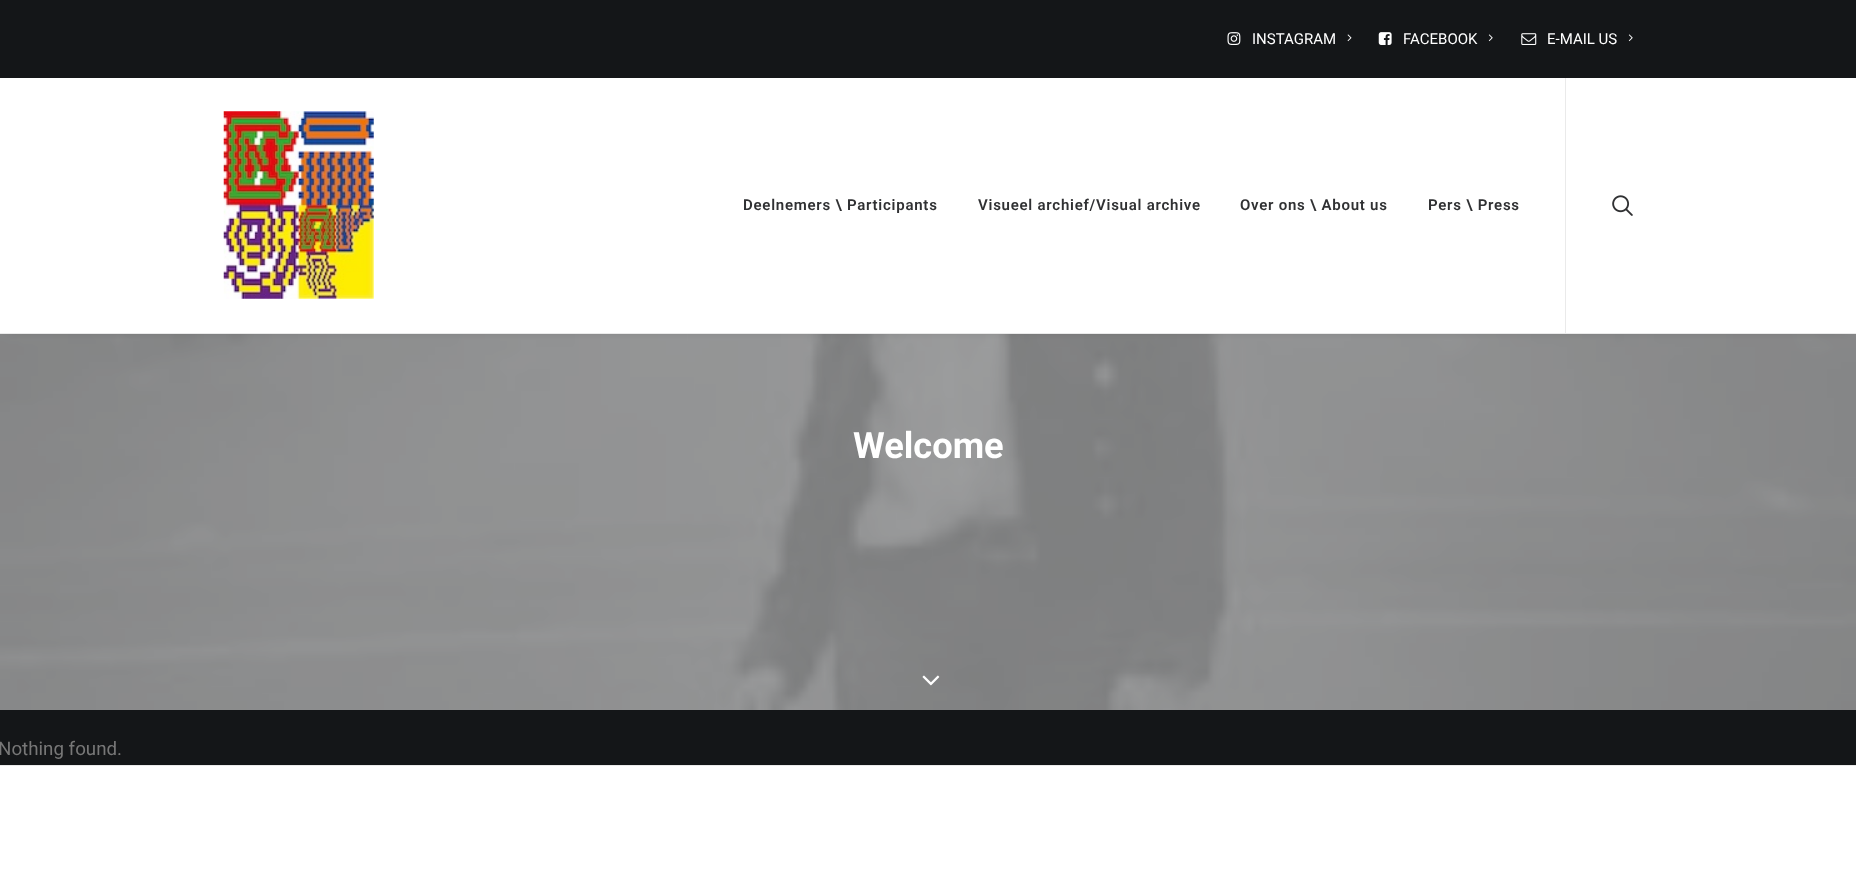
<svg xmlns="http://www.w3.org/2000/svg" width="1856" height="883">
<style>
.a{font:15px Roboto;fill:#fff}
.b{font:600 15px Roboto;letter-spacing:0.75px;fill:#303133}
.c{font:bold 36.25px Roboto;fill:#fff}
.d{font:18.75px Roboto;fill:#777}
</style>
<rect width="100%" height="100%" fill="#fff"/>
<image href="8.png" x="0" y="334" width="1856" height="376"/>
<path fill="#00000099" filter="blur(6px)" d="M11 95h1835v231H11z"/>
<path fill="#141618" d="M0 0h1856v78H0z"/>
<image href="1.png" x="1227" y="32" width="14" height="13"/>
<image href="2.png" x="1347" y="34" width="5" height="8"/>
<image href="3.png" x="1378" y="32" width="14" height="13"/>
<image href="4.png" x="1488" y="34" width="5" height="8"/>
<image href="5.png" x="1521" y="33" width="16" height="12"/>
<image href="4.png" x="1628" y="34" width="5" height="8"/>
<path fill="#fff" d="M0 82h1856v251H0z"/>
<path fill="#eaeaea" d="M0 333h1856v1H0z"/>
<image href="6.png" x="223" y="111" width="151" height="188"/>
<path fill="#eaeaea" d="M1565 78h1v255H1565z"/>
<image href="7.png" x="1612" y="195" width="21" height="21"/>
<image href="9.png" x="922" y="675" width="18" height="11"/>
<path fill="#141618" d="M0 710h1856v55H0z"/>
<path fill="#eaeaea" d="M0 765h1856v1H0z"/>
<text class="a" x="1252" y="44">INSTAGRAM</text>
<text class="a" x="1403" y="44">FACEBOOK</text>
<text class="a" x="1547" y="44">E-MAIL US</text>
<text class="b" x="743" y="210">Deelnemers \ Participants</text>
<text class="b" x="978" y="210">Visueel archief/Visual archive</text>
<text class="b" x="1240" y="210">Over ons \ About us</text>
<text class="b" x="1428" y="210">Pers \ Press</text>
<text class="c" x="853" y="458">Welcome</text>
<text class="d" x="-2" y="755">Nothing found.</text>
</svg>
